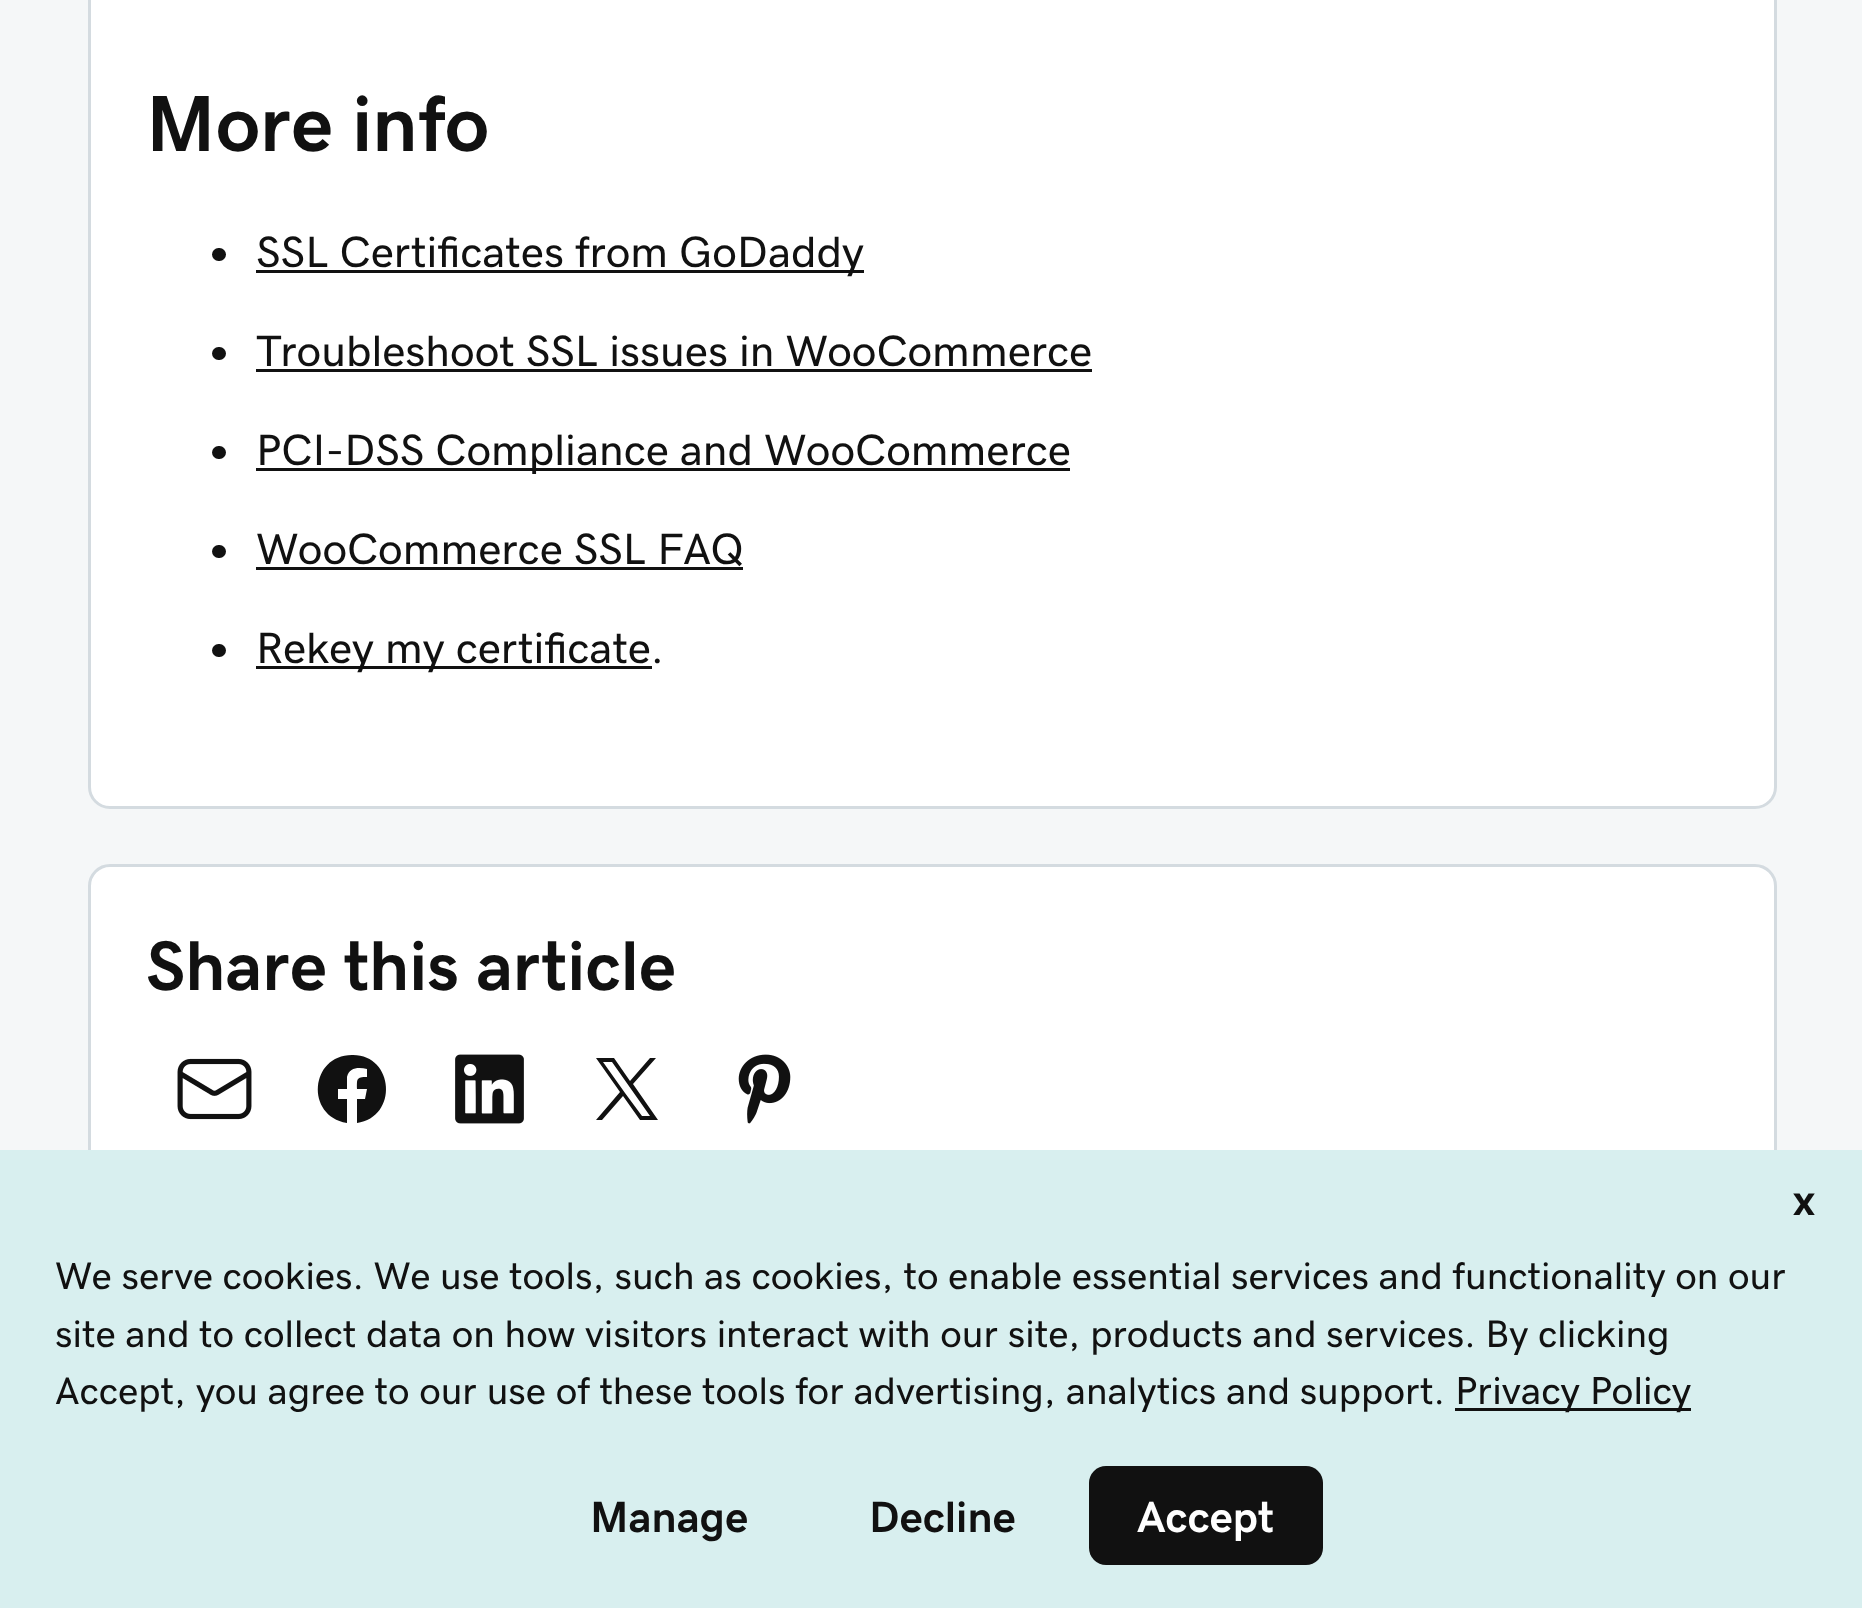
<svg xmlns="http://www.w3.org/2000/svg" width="1862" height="1608">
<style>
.a{font:bold 79.5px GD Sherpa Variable;fill:#111}
.b{font:44px GD Sherpa Variable;fill:#111}
.c{font:800 70.5px GD Sherpa Variable;fill:#111}
.d{font:bold 44px 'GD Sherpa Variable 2';fill:#111}
.e{font:38.5px GD Sherpa Variable;fill:#111}
.f{font:39px GD Sherpa Variable;fill:#111}
.g{font:bold 44px 'GD Sherpa Variable 2';fill:#fff}
</style>
<rect width="100%" height="100%" fill="#f5f7f8"/>
<rect fill="#fff" stroke="#d4dbe0" stroke-width="3" x="89.5" y="-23.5" width="1686" height="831" rx="20.5"/>
<rect fill="#111" x="212" y="248" width="14" height="13" rx="6.5"/>
<path fill="#111" d="M256 270h608v3H256z"/>
<rect fill="#111" x="212" y="347" width="14" height="13" rx="6.5"/>
<path fill="#111" d="M256 369h836v3H256z"/>
<rect fill="#111" x="212" y="446" width="14" height="13" rx="6.5"/>
<path fill="#111" d="M256 468h814v3H256z"/>
<rect fill="#111" x="212" y="545" width="14" height="13" rx="6.5"/>
<path fill="#111" d="M256 567h487v3H256z"/>
<rect fill="#111" x="212" y="644" width="14" height="13" rx="6.5"/>
<path fill="#111" d="M256 666h396v3H256z"/>
<rect fill="#fff" stroke="#d4dbe0" stroke-width="3" x="89.5" y="865.5" width="1686" height="338" rx="20.5"/>
<image href="1.png" x="177" y="1058" width="75" height="62"/>
<path fill="#111" fill-rule="evenodd" d="M352 1055c-42 0-47 61-5 68v-24h-9v-10h9v-12c2-10 12-10 20-8v8c-11 0-10 2-10 12h10l-2 10h-8v24c42-6 37-69-5-68z"/>
<image href="2.png" x="455" y="1054" width="69" height="70"/>
<path fill="#111" d="M633 1084l23-26h-6l-20 23l-16-23h-18l24 34l-24 28h6l21-24l17 24h18zm-8 9l-22-31h9l38 54h-8z"/>
<image href="3.png" x="738" y="1054" width="53" height="70"/>
<path fill="#d8efef" d="M0 1150h1862v458H0z"/>
<path fill="#111" d="M1455 1408h236v3H1455z"/>
<rect fill="#111" x="1089" y="1466" width="234" height="99" rx="17"/>
<text class="a" x="146" y="151">More info</text>
<text class="b" x="256" y="267">SSL Certificates from GoDaddy</text>
<text class="b" x="256" y="366">Troubleshoot SSL issues in WooCommerce</text>
<text class="b" x="256" y="465">PCI-DSS Compliance and WooCommerce</text>
<text class="b" x="256" y="564">WooCommerce SSL FAQ</text>
<text class="b" x="256" y="663">Rekey my certificate.</text>
<text class="c" x="146" y="990">Share this article</text>
<text class="d" x="1793" y="1215">x</text>
<text class="e" x="55" y="1289">We serve cookies. We use tools, such as cookies, to enable essential services and functionality on our</text>
<text class="e" x="55" y="1347">site and to collect data on how visitors interact with our site, products and services. By clicking</text>
<text class="e" x="55" y="1404">Accept, you agree to our use of these tools for advertising, analytics and support.</text>
<text class="f" x="1455" y="1404">Privacy Policy</text>
<text class="d" x="590" y="1532">Manage</text>
<text class="d" x="869" y="1532">Decline</text>
<text class="g" x="1137" y="1532">Accept</text>
</svg>
